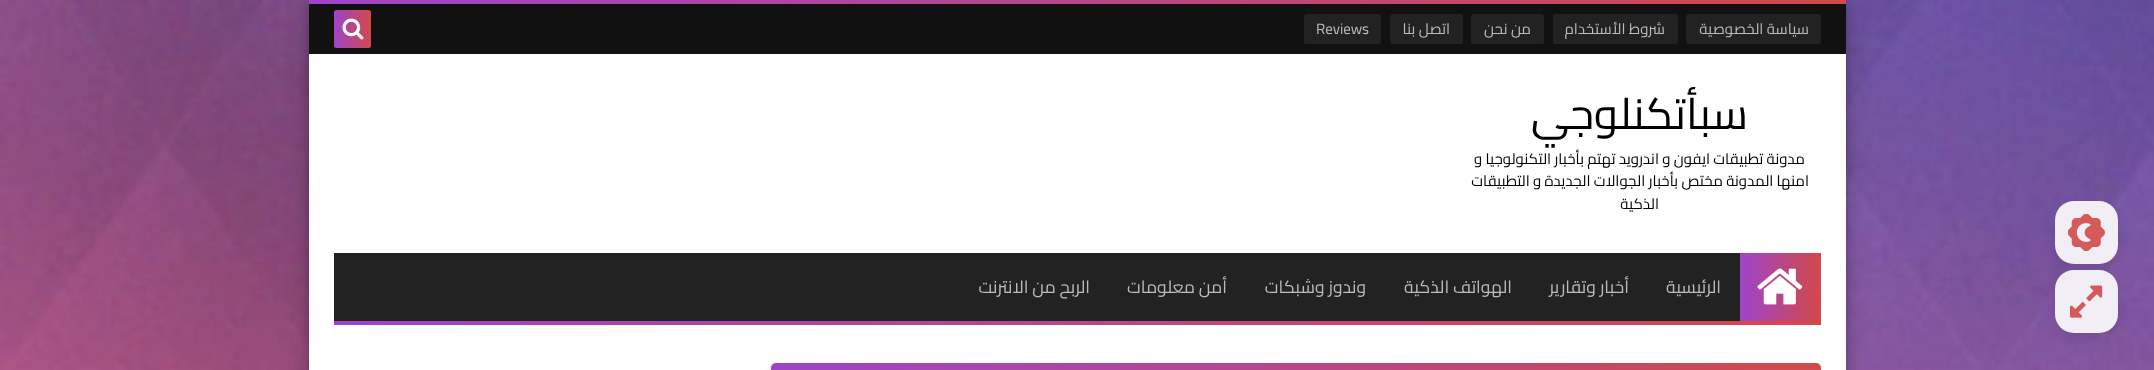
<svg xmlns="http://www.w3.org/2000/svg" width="2154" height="370">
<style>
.a{font:15px Cairo;direction:rtl;fill:#bbb}
.b{font:15px Cairo;fill:#bbb}
.c{font:43.75px Cairo;direction:rtl;fill:#000}
.d{font:15px Cairo;direction:rtl;fill:#000}
.e{font:17.5px Cairo;direction:rtl;fill:#bbb}
</style>
<defs>
<clipPath id="clip1"><path d="M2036 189h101v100h-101zm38 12h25c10.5 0 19 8.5 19 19v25c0 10.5-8.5 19-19 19h-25c-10.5 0-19-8.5-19-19v-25c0-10.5 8.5-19 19-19z" clip-rule="evenodd"/></clipPath>
<clipPath id="clip2"><path d="M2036 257h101v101h-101zm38 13h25c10.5 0 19 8.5 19 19v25c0 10.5-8.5 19-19 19h-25c-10.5 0-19-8.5-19-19v-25c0-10.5 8.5-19 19-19z" clip-rule="evenodd"/></clipPath>
<linearGradient id="g1" gradientUnits="userSpaceOnUse" x1="1846" y1="1.9" x2="309" y2="1.9"><stop offset="0" stop-color="#d24949"/><stop offset="1" stop-color="#9e44c9"/></linearGradient>
<linearGradient id="g2" gradientUnits="userSpaceOnUse" x1="371" y1="29" x2="334" y2="29"><stop offset="0" stop-color="#d24949"/><stop offset="1" stop-color="#9e44c9"/></linearGradient>
<linearGradient id="g3" gradientUnits="userSpaceOnUse" x1="1821" y1="287" x2="1740" y2="287"><stop offset="0" stop-color="#d24949"/><stop offset="1" stop-color="#9e44c9"/></linearGradient>
<linearGradient id="g4" gradientUnits="userSpaceOnUse" x1="1821" y1="323" x2="334" y2="323"><stop offset="0" stop-color="#d24949"/><stop offset="1" stop-color="#9e44c9"/></linearGradient>
<clipPath id="clip3"><path d="M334 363h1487v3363H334z"/></clipPath>
<linearGradient id="g5" gradientUnits="userSpaceOnUse" x1="1821" y1="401" x2="771" y2="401"><stop offset="0" stop-color="#d24949"/><stop offset="1" stop-color="#9e44c9"/></linearGradient>
</defs>
<rect width="100%" height="100%" fill="#fff"/>
<image href="1.png" x="0" y="0" width="2154" height="370"/>
<g clip-path="url(#clip1)">
<rect fill="#00000017" filter="blur(6px)" x="2055" y="208" width="63" height="62" rx="19"/>
</g>
<rect fill="#ffffffe6" x="2055" y="201" width="63" height="63" rx="19"/>
<image href="2.png" x="2068" y="214" width="37" height="37"/>
<g clip-path="url(#clip2)">
<rect fill="#00000017" filter="blur(6px)" x="2055" y="276" width="63" height="63" rx="19"/>
</g>
<rect fill="#ffffffe6" x="2055" y="270" width="63" height="63" rx="19"/>
<image href="3.png" x="2070" y="285" width="33" height="33"/>
<path fill="#00000030" filter="blur(12.5px)" d="M309 8h1537v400H309z"/>
<path fill="#00000033" filter="blur(5px)" d="M309 5h1537v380H309z"/>
<path fill="#fff" d="M309 54h1537v316H309z"/>
<path fill="url(#g1)" d="M309 0h1537v4H309z"/>
<path fill="#111" d="M309 4h1537v50H309z"/>
<rect fill="#222" x="1686" y="14" width="135" height="30" rx="2.5"/>
<rect fill="#222" x="1553" y="14" width="125" height="30" rx="2.5"/>
<rect fill="#222" x="1471" y="14" width="73" height="30" rx="2.5"/>
<rect fill="#222" x="1390" y="14" width="73" height="30" rx="2.5"/>
<rect fill="#222" x="1304" y="14" width="77" height="30" rx="2.5"/>
<rect fill="url(#g2)" x="334" y="10" width="37" height="38" rx="2.5"/>
<image href="4.png" x="342" y="18" width="22" height="22"/>
<path fill="#222" d="M334 253h1406v68H334z"/>
<path fill="url(#g3)" d="M1740 253h81v68H1740z"/>
<image href="5.png" x="1757" y="268" width="46" height="37"/>
<path fill="url(#g4)" d="M334 321h1487v4H334z"/>
<g clip-path="url(#clip3)">
<rect fill="#00000033" filter="blur(3px)" x="771" y="366" width="1050" height="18" rx="5"/>
</g>
<rect fill="url(#g5)" x="771" y="363" width="1050" height="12" rx="5"/>
<text class="a" x="1809" y="34">سياسة الخصوصية</text>
<text class="a" x="1665" y="34">شروط الأستخدام</text>
<text class="a" x="1531" y="34">من نحن</text>
<text class="a" x="1450" y="34">اتصل بنا</text>
<text class="b" x="1316" y="34">Reviews</text>
<text class="c" x="1748" y="129">سبأتكنلوجي</text>
<text class="d" x="1805" y="164">مدونة تطبيقات ايفون و اندرويد تهتم بأخبار التكنولوجيا و</text>
<text class="d" x="1809" y="186">امنها المدونة مختص بأخبار الجوالات الجديدة و التطبيقات</text>
<text class="d" x="1659" y="209">الذكية</text>
<text class="e" x="1721" y="293">الرئيسية</text>
<text class="e" x="1629" y="293">أخبار وتقارير</text>
<text class="e" x="1512" y="293">الهواتف الذكية</text>
<text class="e" x="1366" y="293">وندوز وشبكات</text>
<text class="e" x="1227" y="293">أمن معلومات</text>
<text class="e" x="1090" y="293">الربح من الانترنت</text>
</svg>
